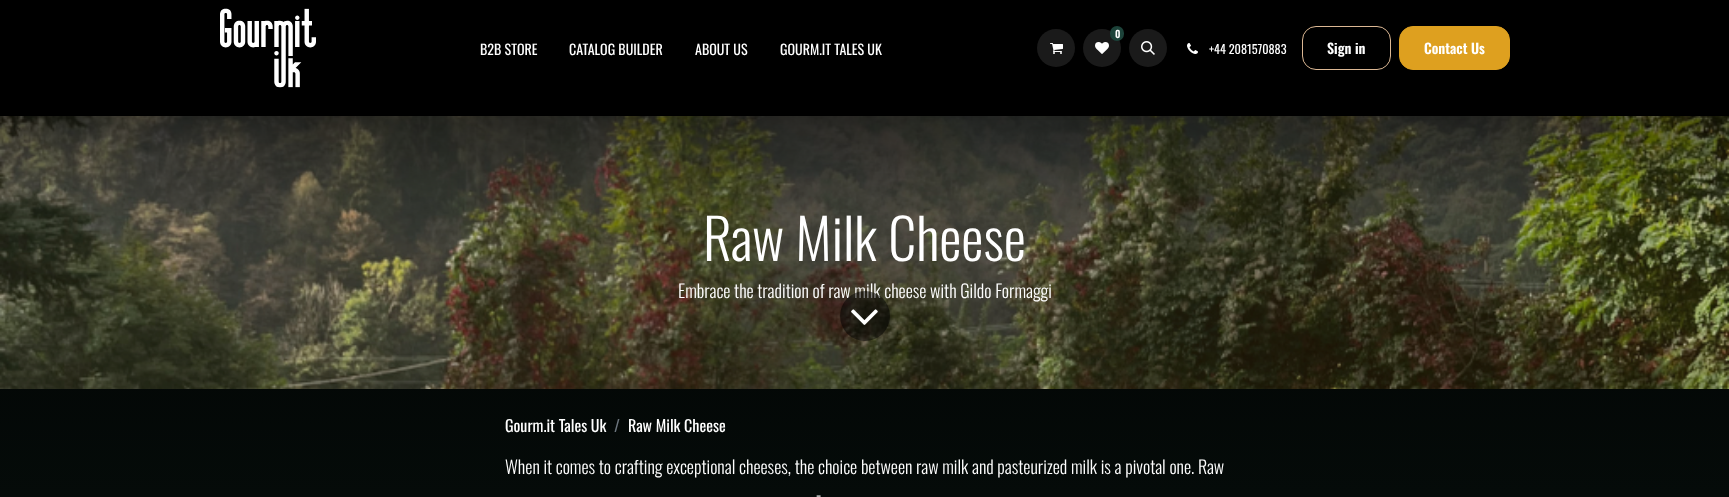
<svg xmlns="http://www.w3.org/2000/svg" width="1729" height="497">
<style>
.a{font:14px Oswald;fill:#fff}
.b{font:600 10px Oswald;fill:#fff}
.c{font:12.25px Oswald;fill:#fff}
.d{font:600 14px Oswald;fill:#fff}
.e{font:300 56px Oswald;fill:#fff}
.f{font:300 18px Oswald;fill:#fff}
.g{font:16px Oswald;fill:#fff}
.h{font:16px Oswald;fill:#6c757d}
</style>
<defs>
<linearGradient id="g1" gradientUnits="userSpaceOnUse" x1="864" y1="116" x2="865" y2="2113"><stop offset="0" stop-color="#000"/><stop offset="0.5" stop-color="#0d1d18"/><stop offset="1" stop-color="#000"/></linearGradient>
</defs>
<rect width="100%" height="100%" fill="#fff"/>
<path fill="#000" d="M0 0h1729v116H0z"/>
<image href="1.png" x="220" y="8" width="96" height="80"/>
<circle fill="#1a1a1a" cx="1056" cy="48" r="19"/>
<image href="2.png" x="1050" y="43" width="13" height="11"/>
<circle fill="#1a1a1a" cx="1102" cy="48" r="19"/>
<rect fill="#1c4239" x="1110" y="26" width="14" height="15" rx="7"/>
<image href="3.png" x="1095" y="42" width="14" height="12"/>
<circle fill="#1a1a1a" cx="1148" cy="48" r="19"/>
<image href="4.png" x="1141" y="41" width="14" height="14"/>
<image href="5.png" x="1187" y="43" width="11" height="11"/>
<rect fill="none" stroke="#dcb894" x="1302.5" y="26.5" width="88" height="43" rx="13.5"/>
<rect fill="#dea01f" stroke="#dea01f" x="1399.5" y="26.5" width="110" height="43" rx="13.5"/>
<path fill="url(#g1)" d="M0 389h1729v108H0z"/>
<image href="6.png" x="0" y="116" width="1729" height="273"/>
<text class="a" x="480" y="55">B2B STORE</text>
<text class="a" x="569" y="55">CATALOG BUILDER</text>
<text class="a" x="695" y="55">ABOUT US</text>
<text class="a" x="780" y="55">GOURM.IT TALES UK</text>
<text class="b" x="1115" y="38">0</text>
<text class="c" x="1209" y="54">+44 2081570883</text>
<text class="d" x="1327" y="54">Sign in</text>
<text class="d" x="1424" y="54">Contact Us</text>
<text class="e" x="703" y="261">Raw Milk Cheese</text>
<text class="f" x="678" y="298">Embrace the tradition of raw milk cheese with Gildo Formaggi</text>
<circle fill="#00000080" cx="865" cy="316" r="25"/>
<image href="7.png" x="851" y="309" width="27" height="16"/>
<text class="g" x="505" y="432">Gourm.it Tales Uk</text>
<text class="h" x="614" y="432">/</text>
<text class="g" x="628" y="432">Raw Milk Cheese</text>
<text class="f" x="505" y="474">When it comes to crafting exceptional cheeses, the choice between raw milk and pasteurized milk is a pivotal one. Raw</text>
<text class="f" x="816" y="501">-</text>
</svg>
